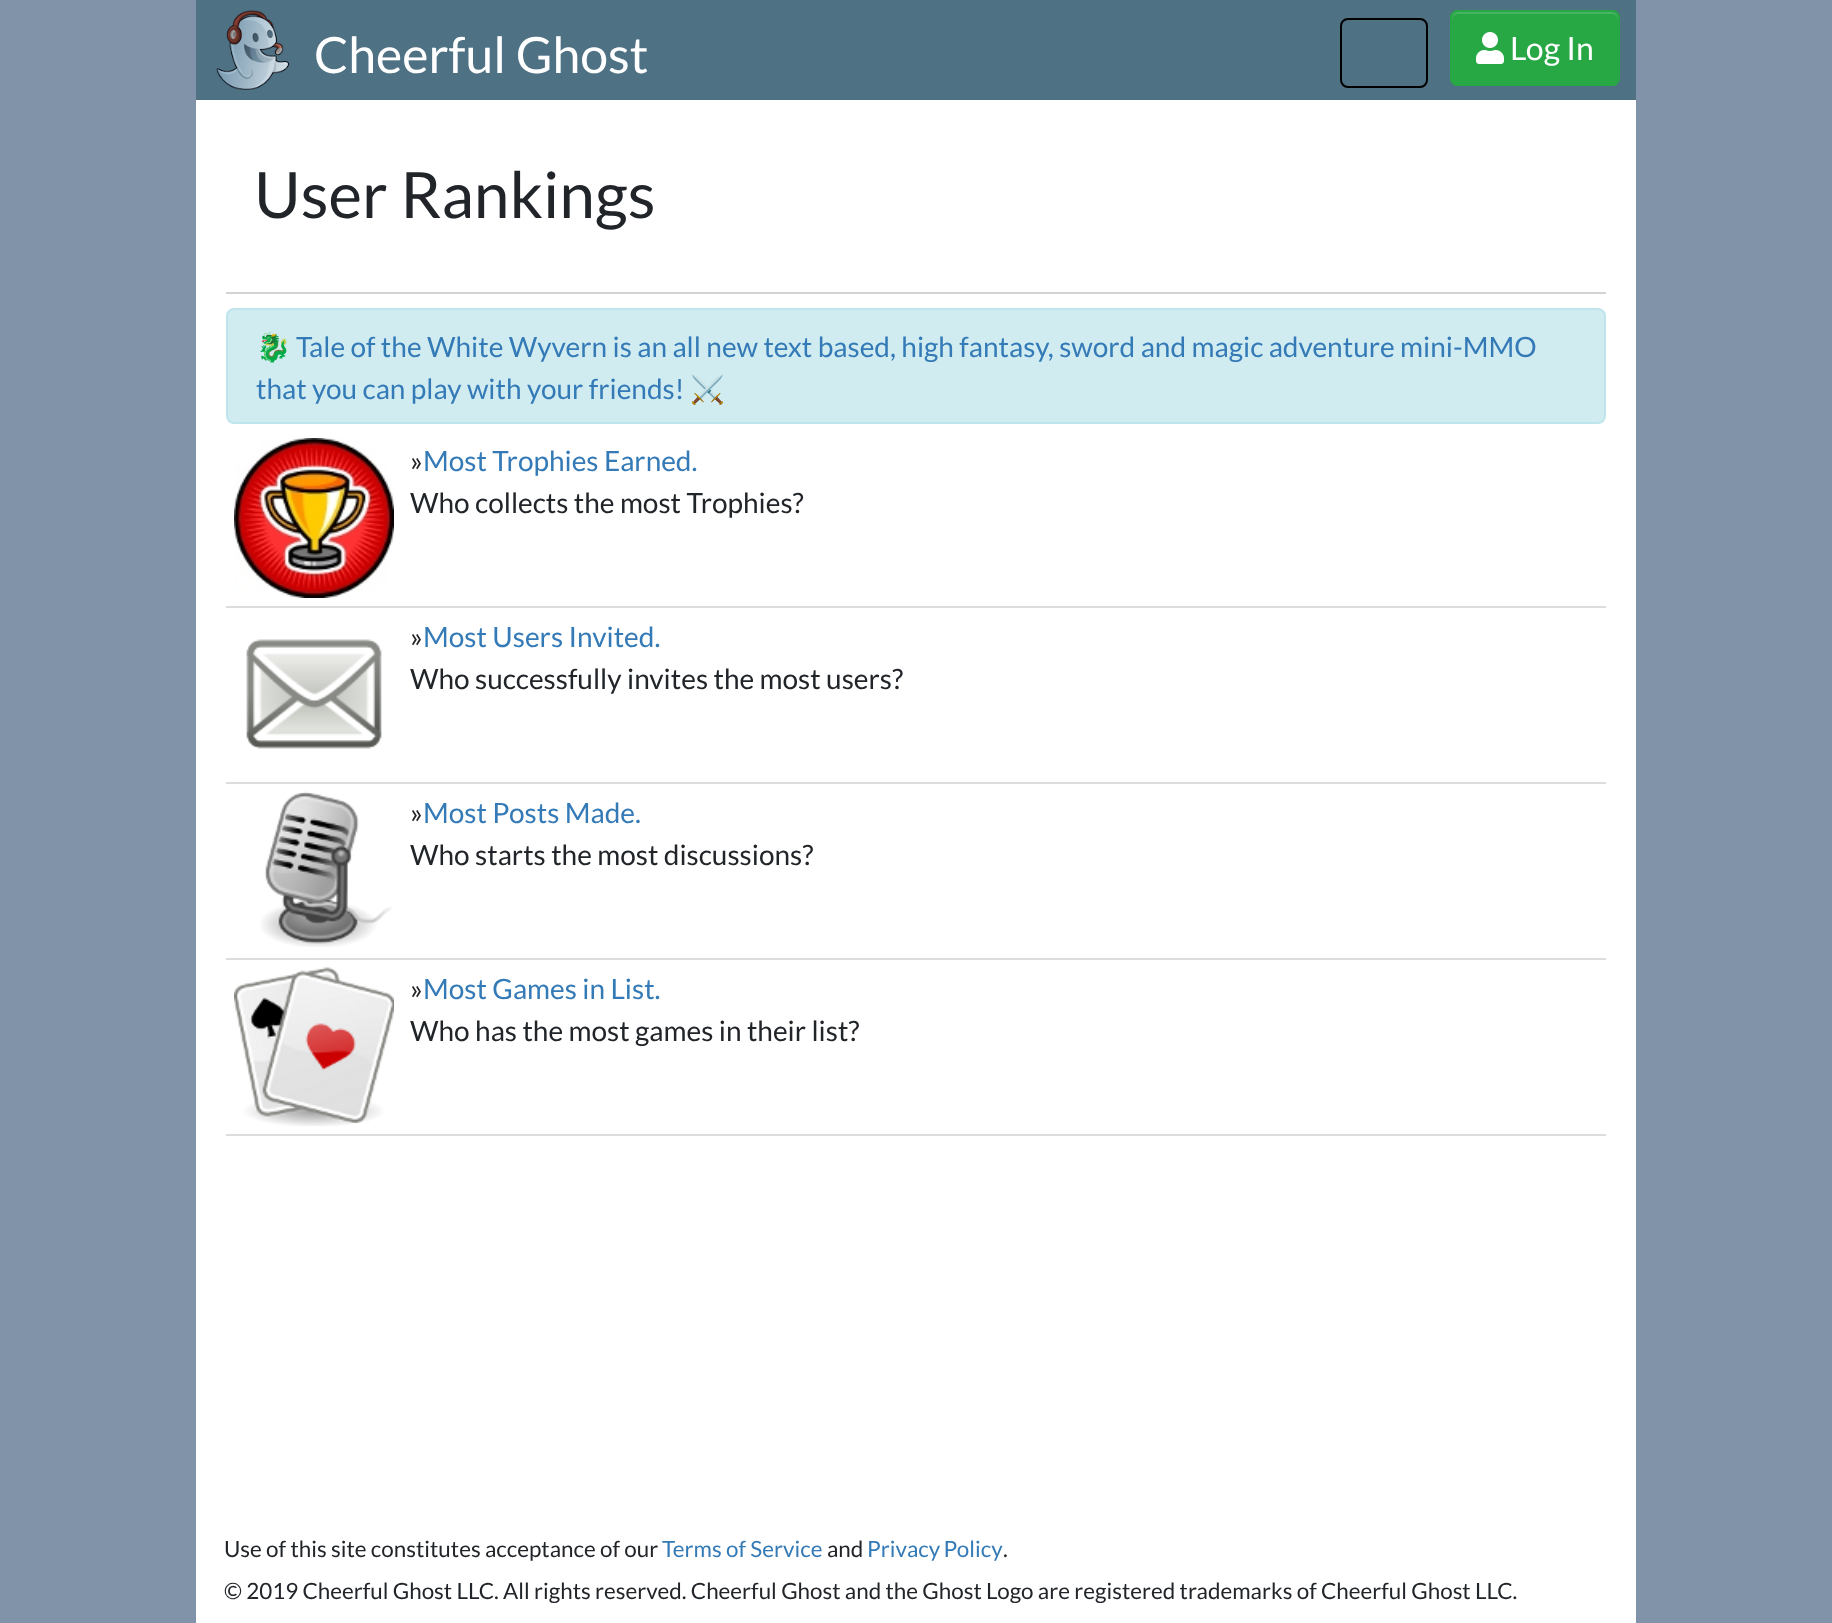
<svg xmlns="http://www.w3.org/2000/svg" width="1832" height="1623">
<style>
.a{font:50px Lato;fill:#fff}
.b{font:32px Lato;fill:#fff}
.c{font:64px Lato;fill:#212529}
.d{font:28px Noto Color Emoji;fill:#337ab7}
.e{font:28px Lato;fill:#337ab7}
.f{font:28px Lato;fill:#212529}
.g{font:22.4px Lato;fill:#212529}
.h{font:22.4px Lato;fill:#337ab7}
</style>
<rect width="100%" height="100%" fill="#8193a8"/>
<path fill="#4e7184" d="M196 0h1440v100H196z"/>
<image href="1.png" x="216" y="10" width="74" height="80"/>
<rect fill="none" stroke="#000" stroke-width="2" x="1341" y="19" width="86" height="68" rx="7"/>
<rect fill="#28a745" x="1450" y="10" width="170" height="76" rx="8"/>
<path fill="#48b461" d="M1458 14h154c3 0 6 3 6 6v-2c0-3-3-6-6-6h-154c-3 0-6 3-6 6v2c0-3 3-6 6-6z"/>
<rect fill="none" stroke="#28a745" stroke-width="2" x="1451" y="11" width="168" height="74" rx="7"/>
<image href="2.png" x="1476" y="32" width="28" height="32"/>
<path fill="#fff" d="M196 100h1440v1523H196z"/>
<path fill="#d3d3d3" d="M226 292h1380v2H226z"/>
<rect fill="#d1ecf1" stroke="#bee5eb" stroke-width="2" x="227" y="309" width="1378" height="114" rx="7"/>
<path fill="#ddd" d="M226 606h1380v2H226z"/>
<image href="3.png" x="234" y="438" width="160" height="160"/>
<path fill="#ddd" d="M226 782h1380v2H226z"/>
<image href="4.png" x="246" y="639" width="136" height="110"/>
<path fill="#ddd" d="M226 958h1380v2H226z"/>
<image href="5.png" x="260" y="791" width="132" height="156"/>
<path fill="#ddd" d="M226 1134h1380v2H226z"/>
<image href="6.png" x="234" y="967" width="160" height="159"/>
<text class="a" x="314" y="73">Cheerful Ghost</text>
<text class="b" x="1510" y="60">Log In</text>
<text class="c" x="254" y="218">User Rankings</text>
<text class="d" x="256" y="357">🐉</text>
<text class="e" x="296" y="357">Tale of the White Wyvern is an all new text based, high fantasy, sword and magic adventure mini-MMO</text>
<text class="e" x="256" y="399">that you can play with your friends!</text>
<text class="d" x="690" y="399">⚔️</text>
<text class="f" x="410" y="471">»</text>
<text class="e" x="423" y="471">Most Trophies Earned.</text>
<text class="f" x="410" y="513">Who collects the most Trophies?</text>
<text class="f" x="410" y="647">»</text>
<text class="e" x="423" y="647">Most Users Invited.</text>
<text class="f" x="410" y="689">Who successfully invites the most users?</text>
<text class="f" x="410" y="823">»</text>
<text class="e" x="423" y="823">Most Posts Made.</text>
<text class="f" x="410" y="865">Who starts the most discussions?</text>
<text class="f" x="410" y="999">»</text>
<text class="e" x="423" y="999">Most Games in List.</text>
<text class="f" x="410" y="1041">Who has the most games in their list?</text>
<text class="g" x="224" y="1557">Use of this site constitutes acceptance of our</text>
<text class="h" x="662" y="1557">Terms of Service</text>
<text class="g" x="827" y="1557">and</text>
<text class="h" x="867" y="1557" word-spacing="-1">Privacy Policy</text>
<text class="g" x="1003" y="1557">.</text>
<text class="g" x="224" y="1599">© 2019 Cheerful Ghost LLC. All rights reserved. Cheerful Ghost and the Ghost Logo are registered trademarks of Cheerful Ghost LLC.</text>
</svg>
